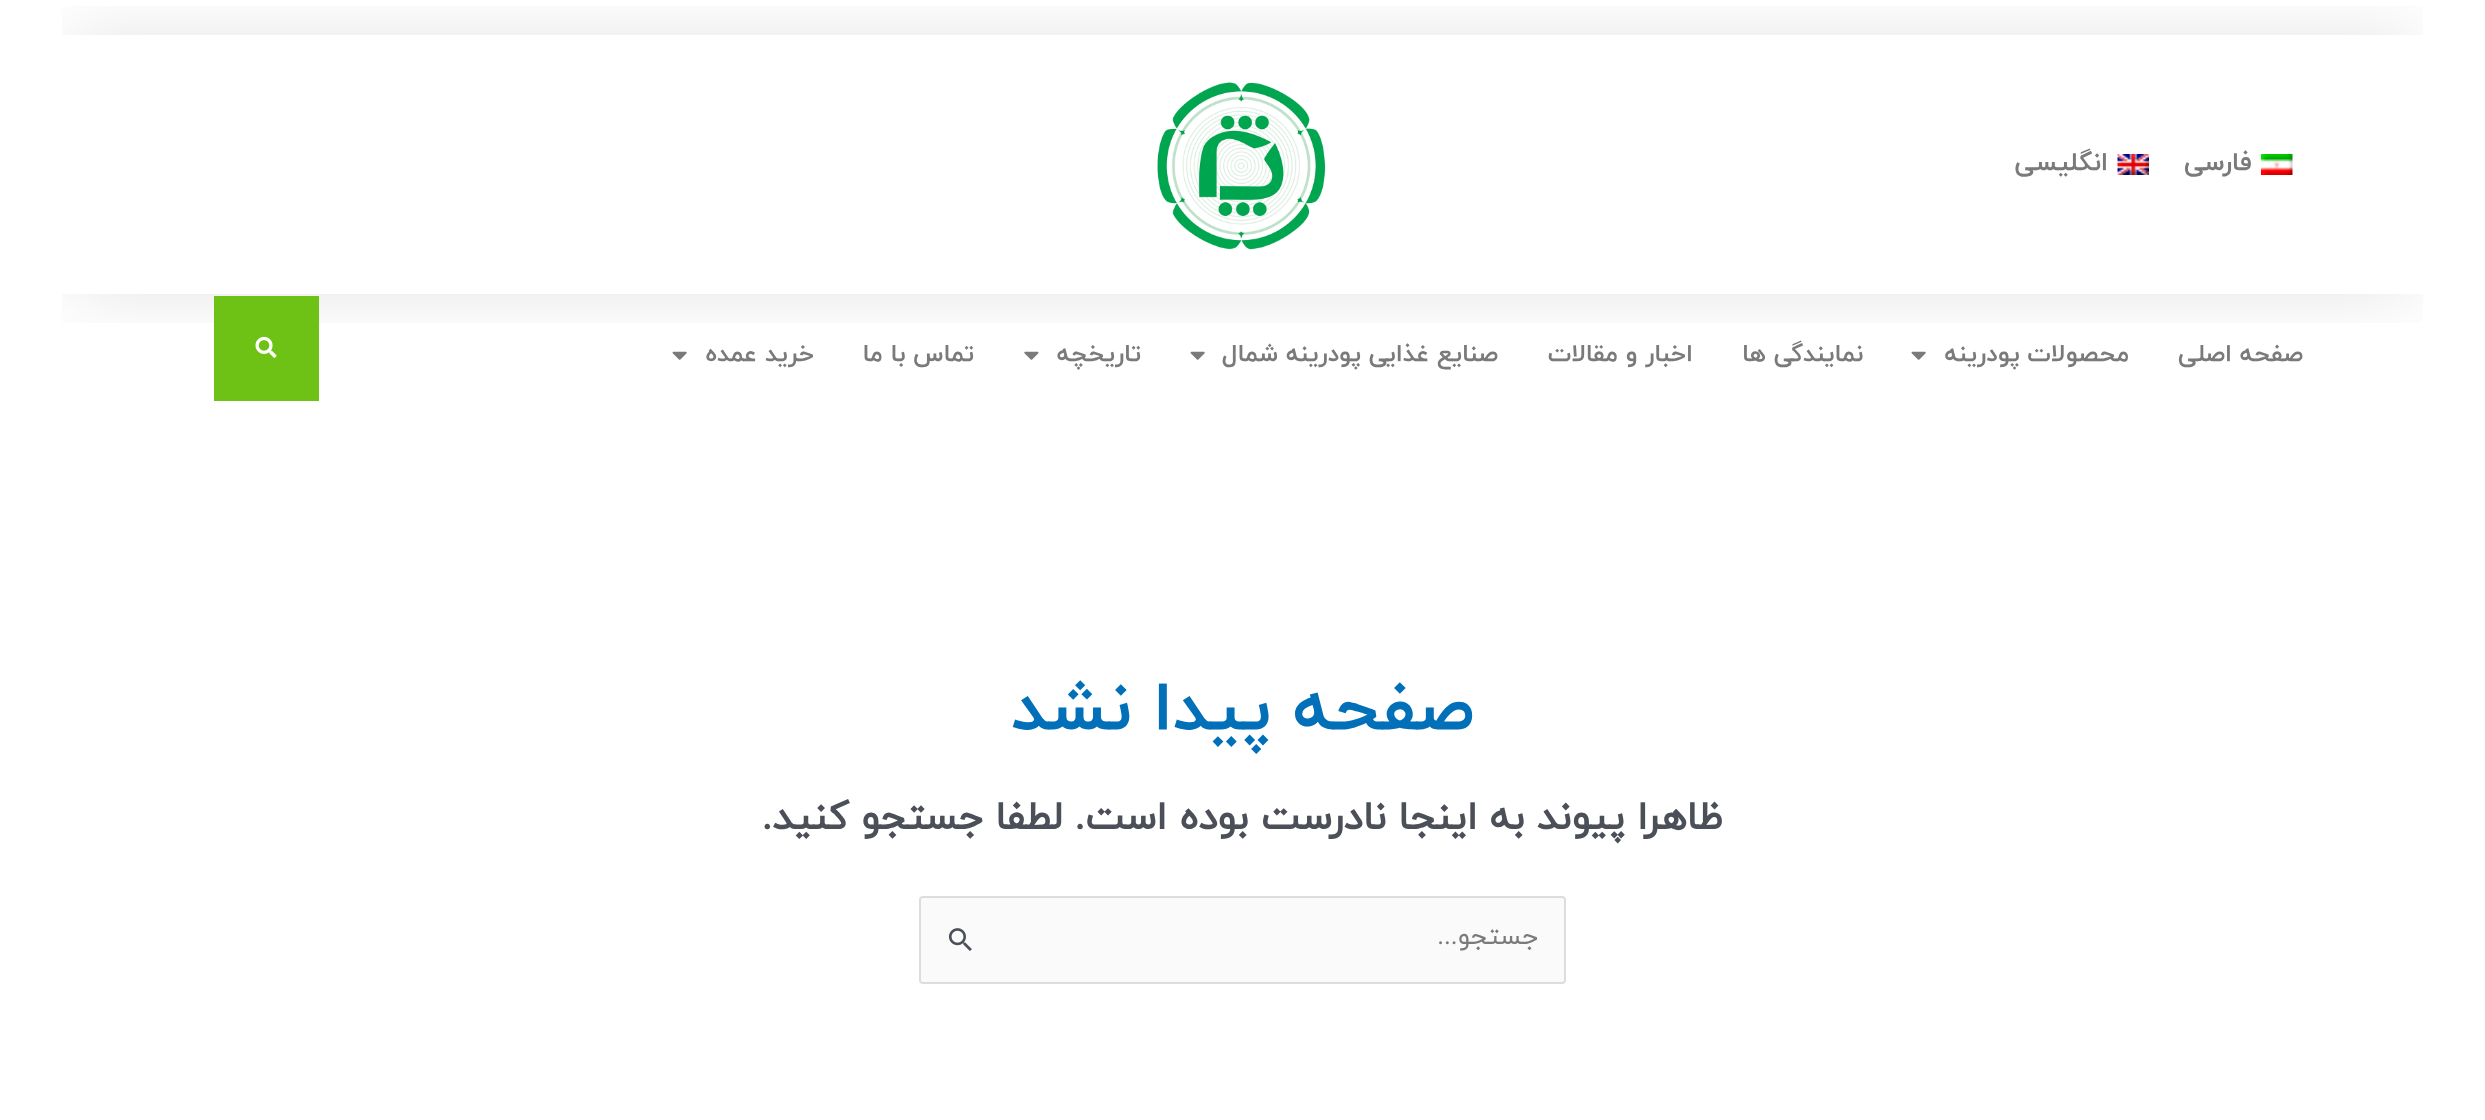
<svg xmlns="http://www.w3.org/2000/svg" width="2485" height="1120">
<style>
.a{font:bold 26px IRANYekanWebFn;direction:rtl;fill:#7a7a7a}
.b{font:bold 24.5px IRANYekanWebFn;direction:rtl;fill:#7a7a7a}
.c{font:bold 70px IRANYekanWebFn;direction:rtl;fill:#0170b9}
.d{font:bold 39.4px 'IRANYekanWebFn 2';direction:rtl;fill:#4b4f58}
.e{font:26px IRANYekanWebFn;direction:rtl;fill:#7a7a7a}
</style>
<defs>
<clipPath id="clip1"><path d="M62 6h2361v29H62z"/></clipPath>
<clipPath id="clip2"><path d="M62 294h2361v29H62z"/></clipPath>
</defs>
<rect width="100%" height="100%" fill="#fff"/>
<g clip-path="url(#clip1)">
<path fill="#0000001a" filter="blur(35px)" d="M70 35h2345v119H70z"/>
</g>
<g clip-path="url(#clip2)">
<path fill="#0000001a" filter="blur(35px)" d="M70 175h2345v119H70z"/>
</g>
<image href="1.png" x="2261" y="154" width="32" height="21"/>
<image href="2.png" x="2117" y="154" width="32" height="21"/>
<image href="3.png" x="1157" y="82" width="169" height="168"/>
<image href="4.png" x="1911" y="351" width="15" height="9"/>
<image href="4.png" x="1190" y="351" width="15" height="9"/>
<image href="5.png" x="1024" y="351" width="15" height="9"/>
<image href="4.png" x="672" y="351" width="15" height="9"/>
<path fill="#6ec215" d="M214 296h105v105H214z"/>
<image href="6.png" x="255" y="336" width="22" height="22"/>
<rect fill="#fafafa" stroke="#ddd" stroke-width="2" x="920" y="897" width="645" height="86" rx="3"/>
<image href="7.png" x="948" y="928" width="24" height="23"/>
<text class="a" x="2252" y="170">فارسی</text>
<text class="a" x="2108" y="170">انگلیسی</text>
<text class="b" x="2303" y="361">صفحه اصلی</text>
<text class="b" x="2129" y="361">محصولات پودرینه</text>
<text class="b" x="1863" y="361">نمایندگی ها</text>
<text class="b" x="1693" y="361">اخبار و مقالات</text>
<text class="b" x="1498" y="361">صنایع غذایی پودرینه شمال</text>
<text class="b" x="1141" y="361">تاریخچه</text>
<text class="b" x="974" y="361">تماس با ما</text>
<text class="b" x="814" y="361">خرید عمده</text>
<text class="c" x="1474" y="729">صفحه پیدا نشد</text>
<text class="d" x="1723" y="829">ظاهرا پیوند به اینجا نادرست بوده است. لطفا جستجو کنید.</text>
<text class="e" x="1538" y="944">جستجو...</text>
</svg>
